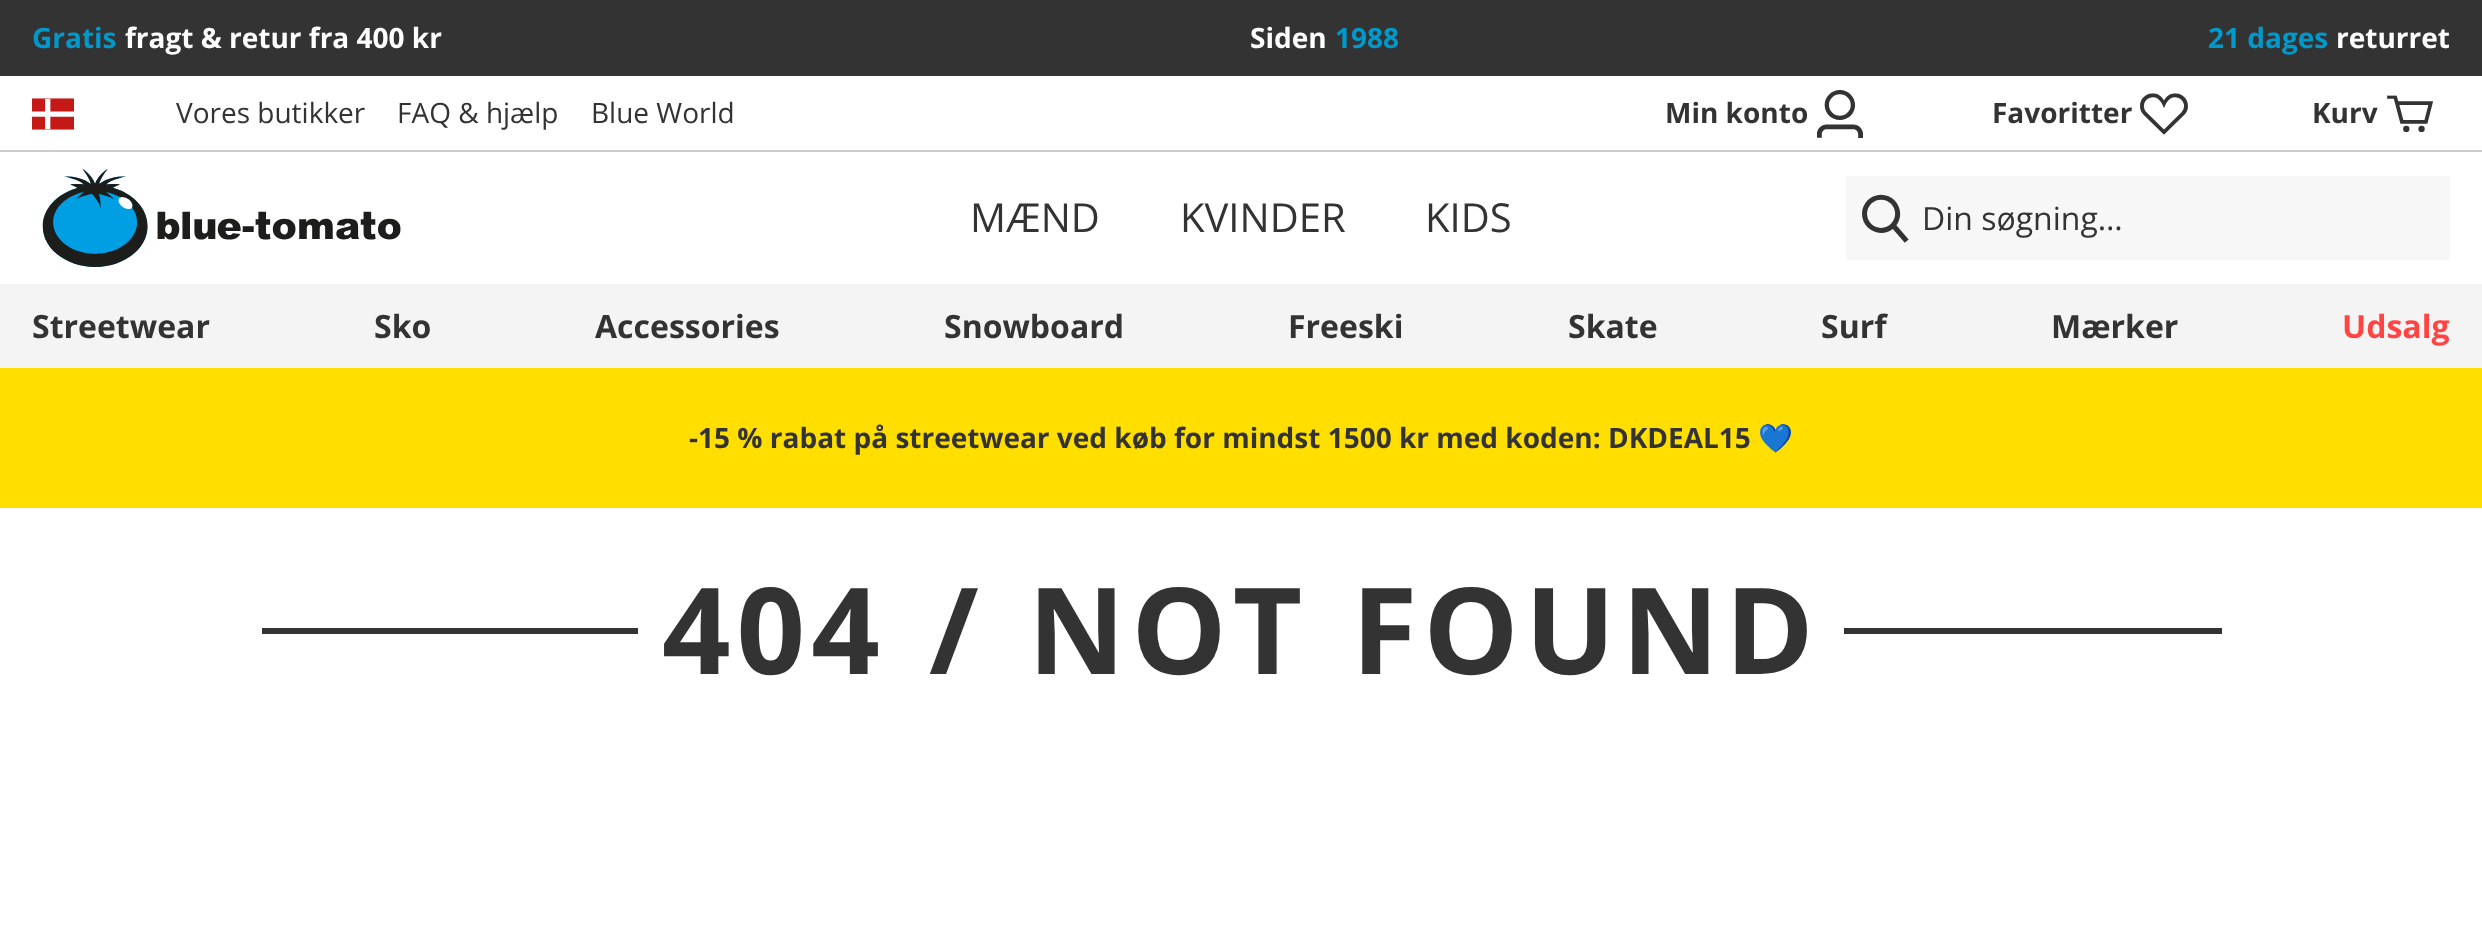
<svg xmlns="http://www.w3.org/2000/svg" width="2482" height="948">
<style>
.a{font:bold 28px Open Sans;fill:#09c}
.b{font:bold 28px Open Sans;fill:#fff}
.c{font:28px Open Sans;fill:#333}
.d{font:bold 28px Open Sans;fill:#333}
.e{font:40px Open Sans;fill:#333}
.f{font:32px Open Sans;fill:#333}
.g{font:bold 32px Open Sans;fill:#333}
.h{font:bold 32px Open Sans;fill:#f44}
.i{font:bold 28px Noto Color Emoji;fill:#333}
.j{font:bold 120px Open Sans;letter-spacing:6px;fill:#333}
</style>
<rect width="100%" height="100%" fill="#fff"/>
<path fill="#333" d="M0 0h2482v76H0z"/>
<image href="1.png" x="32" y="98" width="42" height="32"/>
<image href="2.png" x="1816" y="90" width="47" height="48"/>
<image href="3.png" x="2140" y="93" width="48" height="42"/>
<image href="4.png" x="2387" y="95" width="46" height="37"/>
<path fill="#ccc" d="M0 150h2482v2H0z"/>
<image href="5.png" x="42" y="169" width="359" height="98"/>
<path fill="#f7f7f7" d="M1846 176h604v84H1846z"/>
<image href="6.png" x="1862" y="194" width="47" height="49"/>
<path fill="#f4f4f4" d="M0 284h2482v84H0z"/>
<path fill="#ffde00" d="M0 368h2482v140H0z"/>
<path fill="#333" d="M262 628h1960v6H262z"/>
<path fill="#fff" d="M638 628h1206v6H638z"/>
<text class="a" x="32" y="48">Gratis</text>
<text class="b" x="125" y="48">fragt &amp; retur fra 400 kr</text>
<text class="b" x="1250" y="48">Siden</text>
<text class="a" x="1335" y="48">1988</text>
<text class="a" x="2208" y="48">21 dages</text>
<text class="b" x="2336" y="48">returret</text>
<text class="c" x="176" y="123">Vores butikker</text>
<text class="c" x="397" y="123">FAQ &amp; hjælp</text>
<text class="c" x="591" y="123">Blue World</text>
<text class="d" x="1665" y="123">Min konto</text>
<text class="d" x="1992" y="123">Favoritter</text>
<text class="d" x="2312" y="123">Kurv</text>
<text class="e" x="970" y="232">MÆND</text>
<text class="e" x="1180" y="232">KVINDER</text>
<text class="e" x="1425" y="232">KIDS</text>
<text class="f" x="1922" y="230">Din søgning…</text>
<text class="g" x="32" y="338">Streetwear</text>
<text class="g" x="374" y="338">Sko</text>
<text class="g" x="595" y="338">Accessories</text>
<text class="g" x="944" y="338">Snowboard</text>
<text class="g" x="1288" y="338">Freeski</text>
<text class="g" x="1568" y="338">Skate</text>
<text class="g" x="1821" y="338">Surf</text>
<text class="g" x="2051" y="338">Mærker</text>
<text class="h" x="2342" y="338">Udsalg</text>
<text class="d" x="689" y="448">-15 % rabat på streetwear ved køb for mindst 1500 kr med koden: DKDEAL15</text>
<text class="i" x="1758" y="448">💙</text>
<text class="j" x="662" y="674" word-spacing="6">404 / NOT FOUND</text>
</svg>
